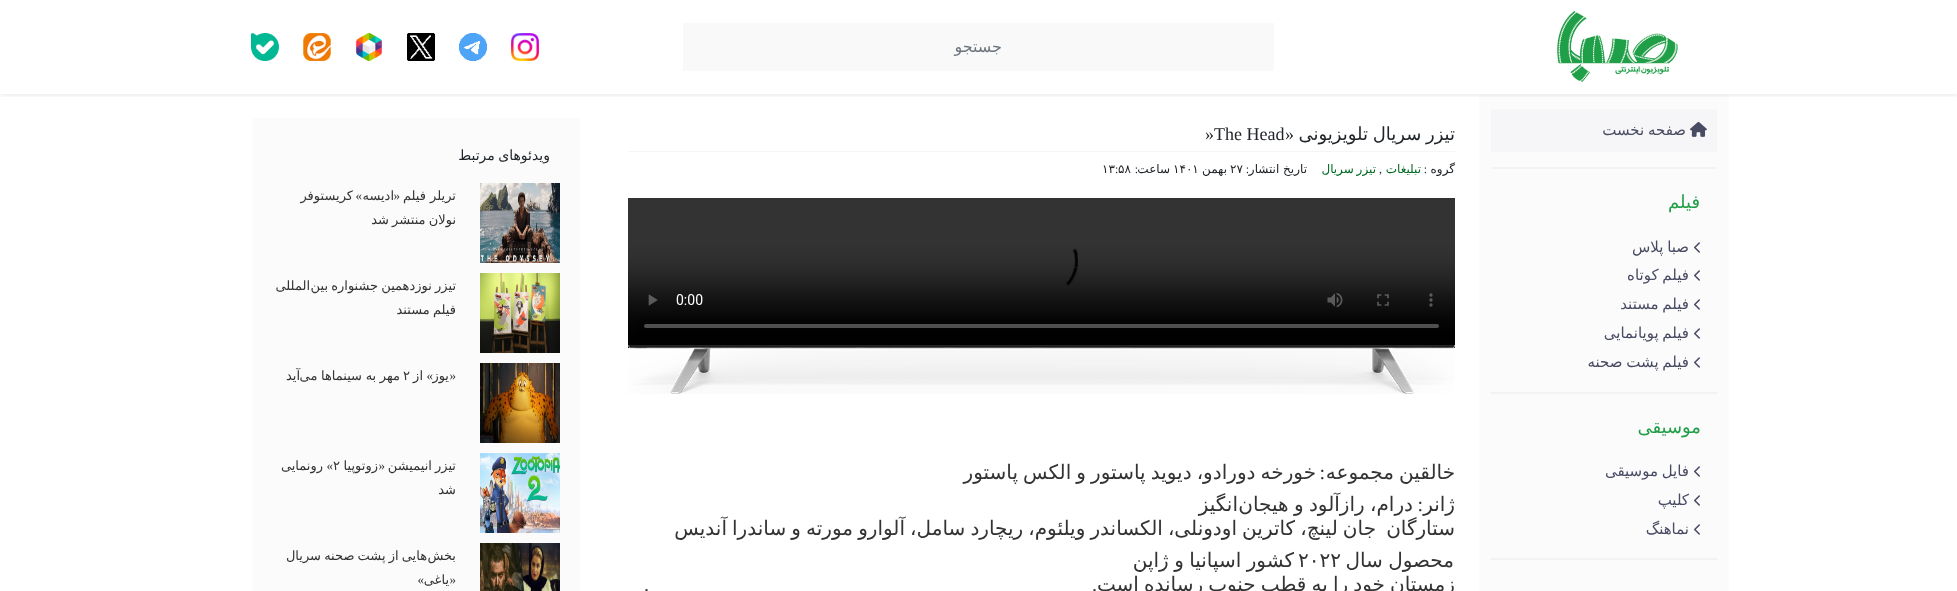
<svg xmlns="http://www.w3.org/2000/svg" width="1957" height="591">
<style>
.a{font:16px DejaVu Sans;direction:rtl;fill:#6c757d}
.b{font:15px DejaVu Sans;direction:rtl;fill:#484b62}
.c{font:18px DejaVu Sans;direction:rtl;fill:#209e47}
.d{font:18px DejaVu Sans;direction:rtl;fill:#212529}
.e{font:18px Liberation Serif;direction:rtl;fill:#212529}
.f{font:18px Liberation Serif;fill:#212529}
.g{font:12px DejaVu Sans;direction:rtl;fill:#212529}
.h{font:12px Liberation Serif;direction:rtl;fill:#212529}
.i{font:12px DejaVu Sans;direction:rtl;fill:#006a23}
.j{font:12px Liberation Serif;fill:#212529}
.k{font:12px DejaVu Sans;fill:#212529}
.l{font:20px DejaVu Sans;direction:rtl;fill:#333}
.m{font:20px Liberation Serif;direction:rtl;fill:#333}
.n{font:20px DejaVu Sans;fill:#333}
.o{font:14px DejaVu Sans;direction:rtl;fill:#212529}
.p{font:13px DejaVu Sans;direction:rtl;fill:#333}
.q{font:13px Liberation Serif;direction:rtl;fill:#333}
.r{font:13px DejaVu Sans;fill:#333}
</style>
<defs>
<clipPath id="clip1"><path d="M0 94h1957v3H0z"/></clipPath>
</defs>
<rect width="100%" height="100%" fill="#fff"/>
<path fill="#fbfbfc" d="M1479 94h250v497H1479z"/>
<g clip-path="url(#clip1)">
<path fill="#00000012" filter="blur(2px)" d="M0 2h1957v94H0z"/>
</g>
<image href="1.png" x="1557" y="11" width="121" height="71"/>
<path fill="#f9f9f9" d="M683 23h591v48H683z"/>
<image href="2.png" x="511" y="33" width="28" height="28"/>
<image href="3.png" x="459" y="33" width="28" height="28"/>
<image href="4.png" x="407" y="33" width="28" height="28"/>
<image href="5.png" x="355" y="33" width="28" height="28"/>
<image href="6.png" x="303" y="33" width="28" height="28"/>
<image href="7.png" x="251" y="33" width="28" height="28"/>
<path fill="#f3f3f4" d="M1491 167h226v2H1491z"/>
<path fill="#f6f6f9" d="M1491 109h226v43H1491z"/>
<image href="8.png" x="1690" y="121" width="17" height="16"/>
<path fill="#f3f3f4" d="M1491 392h226v2H1491z"/>
<image href="9.png" x="1694" y="242" width="6" height="11"/>
<image href="9.png" x="1694" y="270" width="6" height="11"/>
<image href="9.png" x="1694" y="299" width="6" height="11"/>
<image href="9.png" x="1694" y="328" width="6" height="11"/>
<image href="9.png" x="1694" y="357" width="6" height="11"/>
<path fill="#f3f3f4" d="M1491 558h226v2H1491z"/>
<image href="9.png" x="1694" y="466" width="6" height="11"/>
<image href="9.png" x="1694" y="495" width="6" height="11"/>
<image href="9.png" x="1694" y="524" width="6" height="11"/>
<path fill="#f5f5f9" d="M628 151h827v1H628z"/>
<image href="10.png" x="628" y="198" width="827" height="150"/>
<image href="11.png" x="628" y="345" width="827" height="49"/>
<path fill="#fbfbfc" d="M253 118h327v473H253z"/>
<image href="12.png" x="480" y="183" width="80" height="80"/>
<image href="13.png" x="480" y="273" width="80" height="80"/>
<image href="14.png" x="480" y="363" width="80" height="80"/>
<image href="15.png" x="480" y="453" width="80" height="80"/>
<image href="16.png" x="480" y="543" width="80" height="48"/>
<text class="a" x="1002" y="52">جستجو</text>
<text class="b" x="1686" y="135" word-spacing="-1">صفحه نخست</text>
<text class="c" x="1700" y="208">فیلم</text>
<text class="b" x="1689" y="252" word-spacing="-1">صبا پلاس</text>
<text class="b" x="1689" y="280" word-spacing="-1">فیلم کوتاه</text>
<text class="b" x="1689" y="309" word-spacing="-1">فیلم مستند</text>
<text class="b" x="1689" y="338" word-spacing="-1">فیلم پویانمایی</text>
<text class="b" x="1689" y="367" word-spacing="-1">فیلم پشت صحنه</text>
<text class="c" x="1701" y="433">موسیقی</text>
<text class="b" x="1689" y="476" word-spacing="-1">فایل موسیقی</text>
<text class="b" x="1689" y="505">کلیپ</text>
<text class="b" x="1689" y="534">نماهنگ</text>
<text class="d" x="1455" y="140" word-spacing="-1">تیزر سریال تلویزیونی</text>
<text class="e" x="1294" y="140">«</text>
<text class="f" x="1205" y="140">»The Head</text>
<text class="g" x="1455" y="173">گروه</text>
<text class="h" x="1427" y="173">:</text>
<text class="i" x="1421" y="173">تبلیغات</text>
<text class="j" x="1379" y="173">,</text>
<text class="i" x="1376" y="173" word-spacing="-1">تیزر سریال</text>
<text class="g" x="1307" y="173">تاریخ انتشار</text>
<text class="h" x="1249" y="173">:</text>
<text class="k" x="1230" y="173">۲۷</text>
<text class="g" x="1227" y="173">بهمن</text>
<text class="k" x="1173" y="173">۱۴۰۱</text>
<text class="g" x="1170" y="173">ساعت</text>
<text class="h" x="1138" y="173">:</text>
<text class="k" x="1118" y="173">۵۸</text>
<text class="j" x="1115" y="173">:</text>
<text class="k" x="1102" y="173">۱۳</text>
<text class="l" x="1455" y="479" word-spacing="-1.25">خالقین مجموعه</text>
<text class="l" x="1316" y="479" word-spacing="-1.25">خورخه دورادو، دیوید پاستور و الکس پاستور</text>
<text class="m" x="1325" y="479">:</text>
<text class="m" x="1423" y="511">:</text>
<text class="l" x="1455" y="511">ژانر</text>
<text class="l" x="1413" y="511" word-spacing="-1">درام، رازآلود و هیجان</text>
<text class="l" x="1238" y="511">انگیز</text>
<text class="l" x="1455" y="535">ستارگان</text>
<text class="l" x="1376" y="535" word-spacing="-1.25">جان لینچ، کاترین اودونلی، الکساندر ویلئوم، ریچارد سامل، آلوارو مورته و ساندرا آندیس</text>
<text class="l" x="1454" y="567" word-spacing="-1">محصول سال</text>
<text class="n" x="1298" y="567">۲۰۲۲</text>
<text class="l" x="1294" y="567" word-spacing="-1">کشور اسپانیا و ژاپن</text>
<text class="l" x="1455" y="591" word-spacing="-1.25">زمستان خود را به قطب جنوب رسانده است</text>
<text class="m" x="1097" y="591">.</text>
<text class="m" x="649" y="591">.</text>
<text class="o" x="550" y="160" word-spacing="-1">ویدئوهای مرتبط</text>
<text class="p" x="456" y="200">تریلر فیلم</text>
<text class="q" x="400" y="200">«</text>
<text class="p" x="394" y="200">ادیسه</text>
<text class="q" x="362" y="200">»</text>
<text class="p" x="353" y="200">کریستوفر</text>
<text class="p" x="456" y="224" word-spacing="-1">نولان منتشر شد</text>
<text class="p" x="456" y="290" word-spacing="-1">تیزر نوزدهمین جشنواره بین</text>
<text class="p" x="310" y="290">المللی</text>
<text class="p" x="456" y="314" word-spacing="-1">فیلم مستند</text>
<text class="q" x="456" y="380">«</text>
<text class="p" x="449" y="380">یوز</text>
<text class="q" x="433" y="380">»</text>
<text class="p" x="423" y="380">از</text>
<text class="r" x="403" y="380">۲</text>
<text class="p" x="400" y="380" word-spacing="-0.5">مهر به سینماها می</text>
<text class="p" x="300" y="380">آید</text>
<text class="p" x="456" y="470" word-spacing="-1">تیزر انیمیشن</text>
<text class="q" x="385" y="470">«</text>
<text class="p" x="378" y="470">زوتوپیا</text>
<text class="r" x="333" y="470">۲</text>
<text class="q" x="333" y="470">»</text>
<text class="p" x="323" y="470">رونمایی</text>
<text class="p" x="456" y="494">شد</text>
<text class="p" x="427" y="560" word-spacing="-1">هایی از پشت صحنه سریال</text>
<text class="p" x="456" y="560">بخش</text>
<text class="q" x="456" y="584">«</text>
<text class="p" x="449" y="584">یاغی</text>
<text class="q" x="424" y="584">»</text>
</svg>
